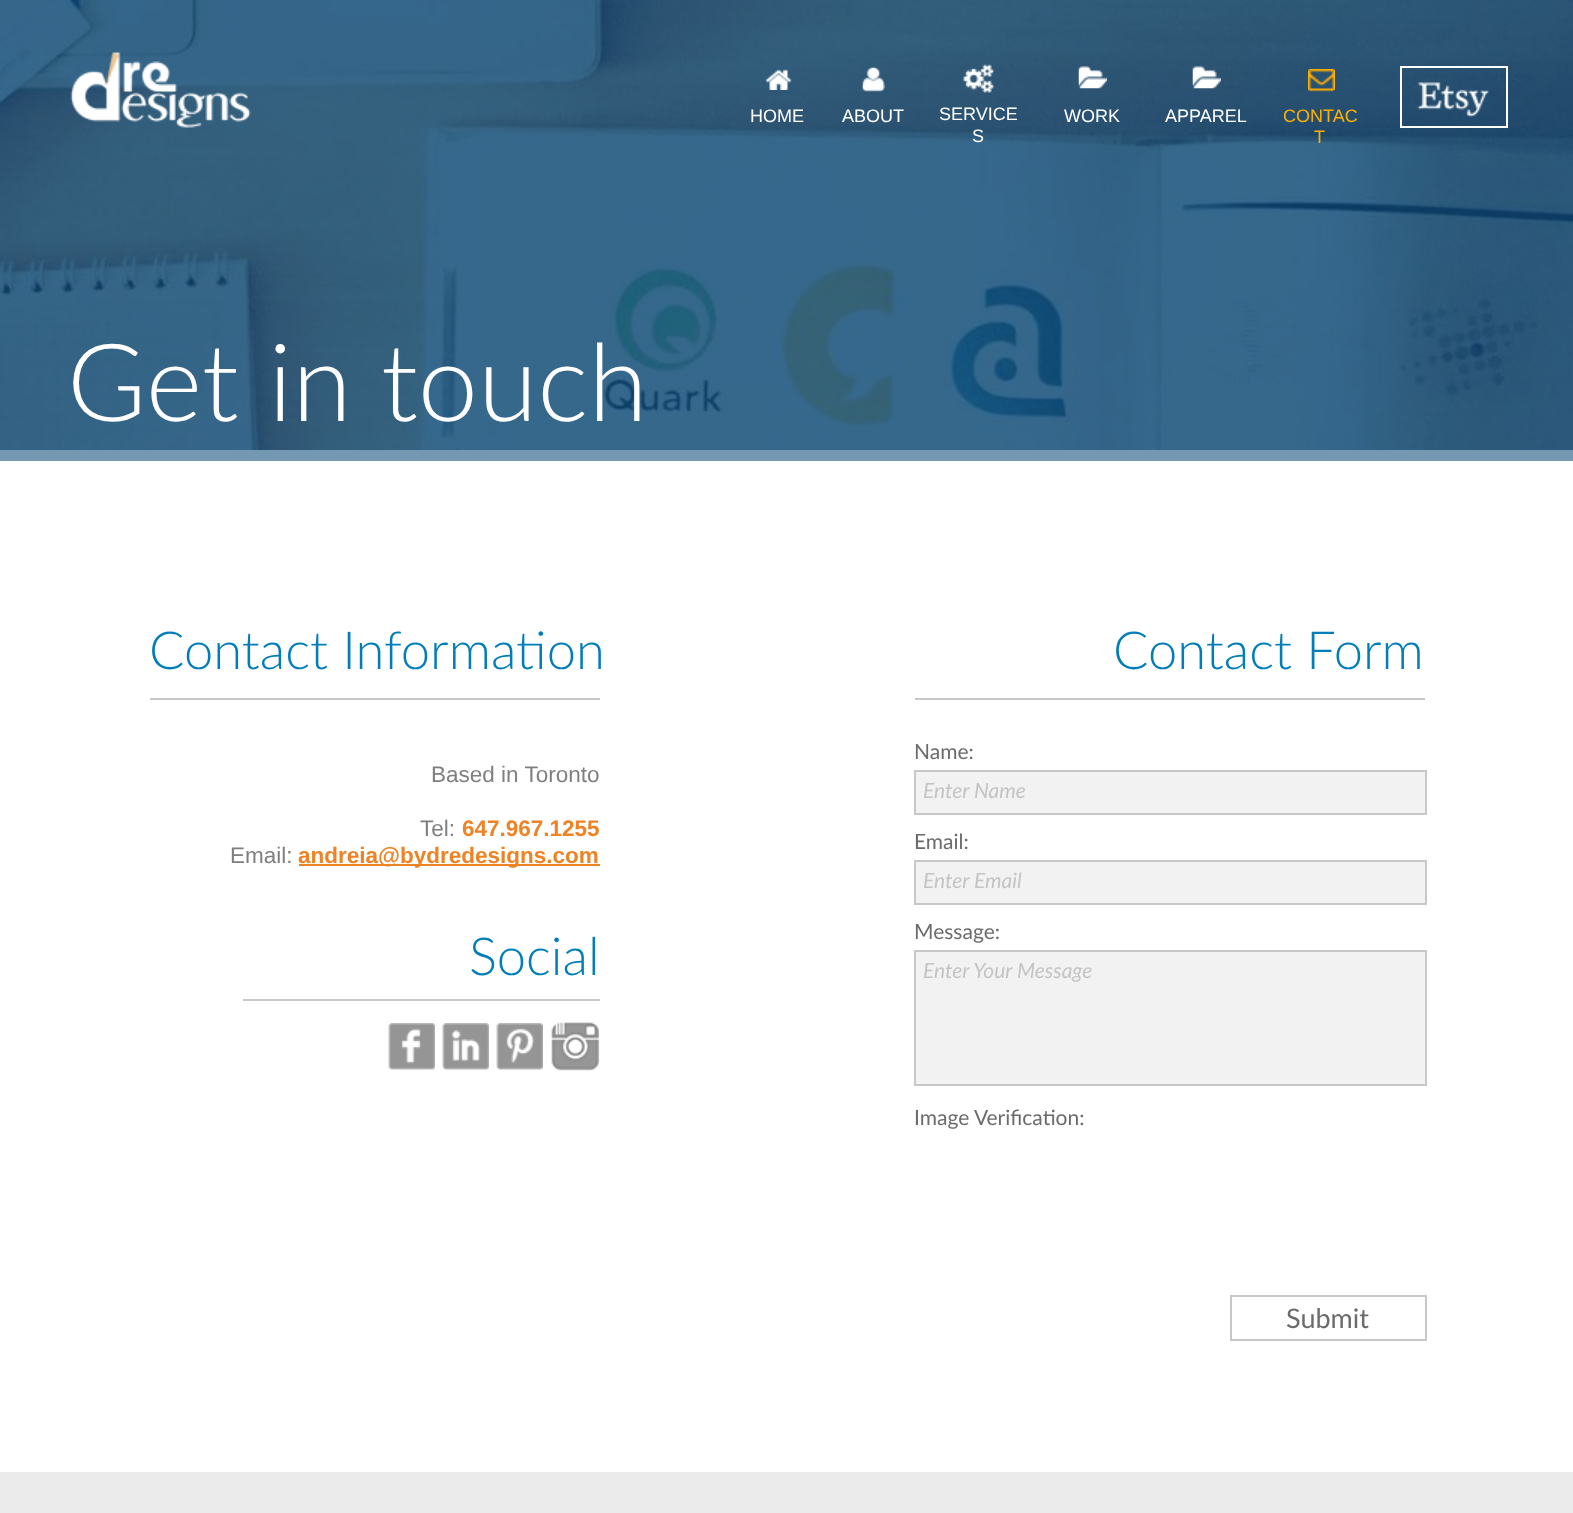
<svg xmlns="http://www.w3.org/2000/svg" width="1573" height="1513">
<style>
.a{font:18px Liberation Sans;fill:#fff}
.b{font:18px Liberation Sans;fill:#ffaf02}
.c{font:300 108px Lato;fill:#fff}
.d{font:300 52.5px Lato;fill:#017db9}
.e{font:22.5px Liberation Sans;fill:#7f7f7f}
.f{font:bold 22.5px Liberation Sans;fill:#ed8324}
.g{font:21px Lato;fill:#6b6b6b}
.h{font:italic 21px Lato;fill:#c4c4c4}
.i{font:27px Lato;fill:#6b6b6b}
</style>
<rect width="100%" height="100%" fill="#fff"/>
<path fill="#7598b2" d="M0 450h1573v11H0z"/>
<image href="1.png" x="0" y="0" width="1573" height="450"/>
<path fill="none" stroke="#fff" stroke-width="2" d="M1401 67h106v60H1401z"/>
<image href="2.png" x="1417" y="82" width="72" height="36"/>
<image href="3.png" x="70" y="52" width="181" height="76"/>
<image href="4.png" x="765" y="69" width="27" height="21"/>
<image href="5.png" x="862" y="67" width="23" height="25"/>
<image href="6.png" x="963" y="64" width="32" height="29"/>
<image href="7.png" x="1078" y="66" width="29" height="23"/>
<image href="8.png" x="1192" y="66" width="29" height="23"/>
<image href="9.png" x="1308" y="69" width="27" height="23"/>
<path fill="#c8c8c8" d="M150 698h450v2H150z"/>
<path fill="#c8c8c8" d="M915 698h510v2H915z"/>
<path fill="#ed8324" d="M299 864h301v2H299z"/>
<path fill="#c8c8c8" d="M243 999h357v2H243z"/>
<image href="10.png" x="388" y="1023" width="47" height="47"/>
<image href="11.png" x="442" y="1023" width="47" height="47"/>
<image href="12.png" x="496" y="1023" width="47" height="47"/>
<path fill="#f2f2f2" stroke="#c8c8c8" stroke-width="2" d="M915 771h511v43H915z"/>
<path fill="#f2f2f2" stroke="#c8c8c8" stroke-width="2" d="M915 861h511v43H915z"/>
<path fill="#f2f2f2" stroke="#c8c8c8" stroke-width="2" d="M915 951h511v134H915z"/>
<path fill="none" stroke="#c8c8c8" stroke-width="2" d="M1231 1296h195v44H1231z"/>
<image href="13.png" x="551" y="1022" width="49" height="49"/>
<path fill="#ebebeb" d="M0 1472h1573v41H0z"/>
<text class="a" x="750" y="122">HOME</text>
<text class="a" x="842" y="122">ABOUT</text>
<text class="a" x="939" y="120">SERVICE</text>
<text class="a" x="972" y="142">S</text>
<text class="a" x="1064" y="122">WORK</text>
<text class="a" x="1165" y="122">APPAREL</text>
<text class="b" x="1283" y="122">CONTAC</text>
<text class="b" x="1314" y="143">T</text>
<text class="c" x="67" y="421">Get in touch</text>
<text class="d" x="149" y="669">Contact Information</text>
<text class="d" x="1113" y="669">Contact Form</text>
<text class="e" x="431" y="782">Based in Toronto</text>
<text class="e" x="420" y="836">Tel:</text>
<text class="f" x="462" y="836">647.967.1255</text>
<text class="e" x="230" y="863">Email:</text>
<text class="f" x="298" y="863">andreia@bydredesigns.com</text>
<text class="d" x="469" y="975">Social</text>
<text class="g" x="914" y="759">Name:</text>
<text class="h" x="923" y="798">Enter Name</text>
<text class="g" x="914" y="849">Email:</text>
<text class="h" x="923" y="888">Enter Email</text>
<text class="g" x="914" y="939">Message:</text>
<text class="h" x="923" y="978">Enter Your Message</text>
<text class="g" x="914" y="1125">Image Verification:</text>
<text class="i" x="1286" y="1328">Submit</text>
</svg>
